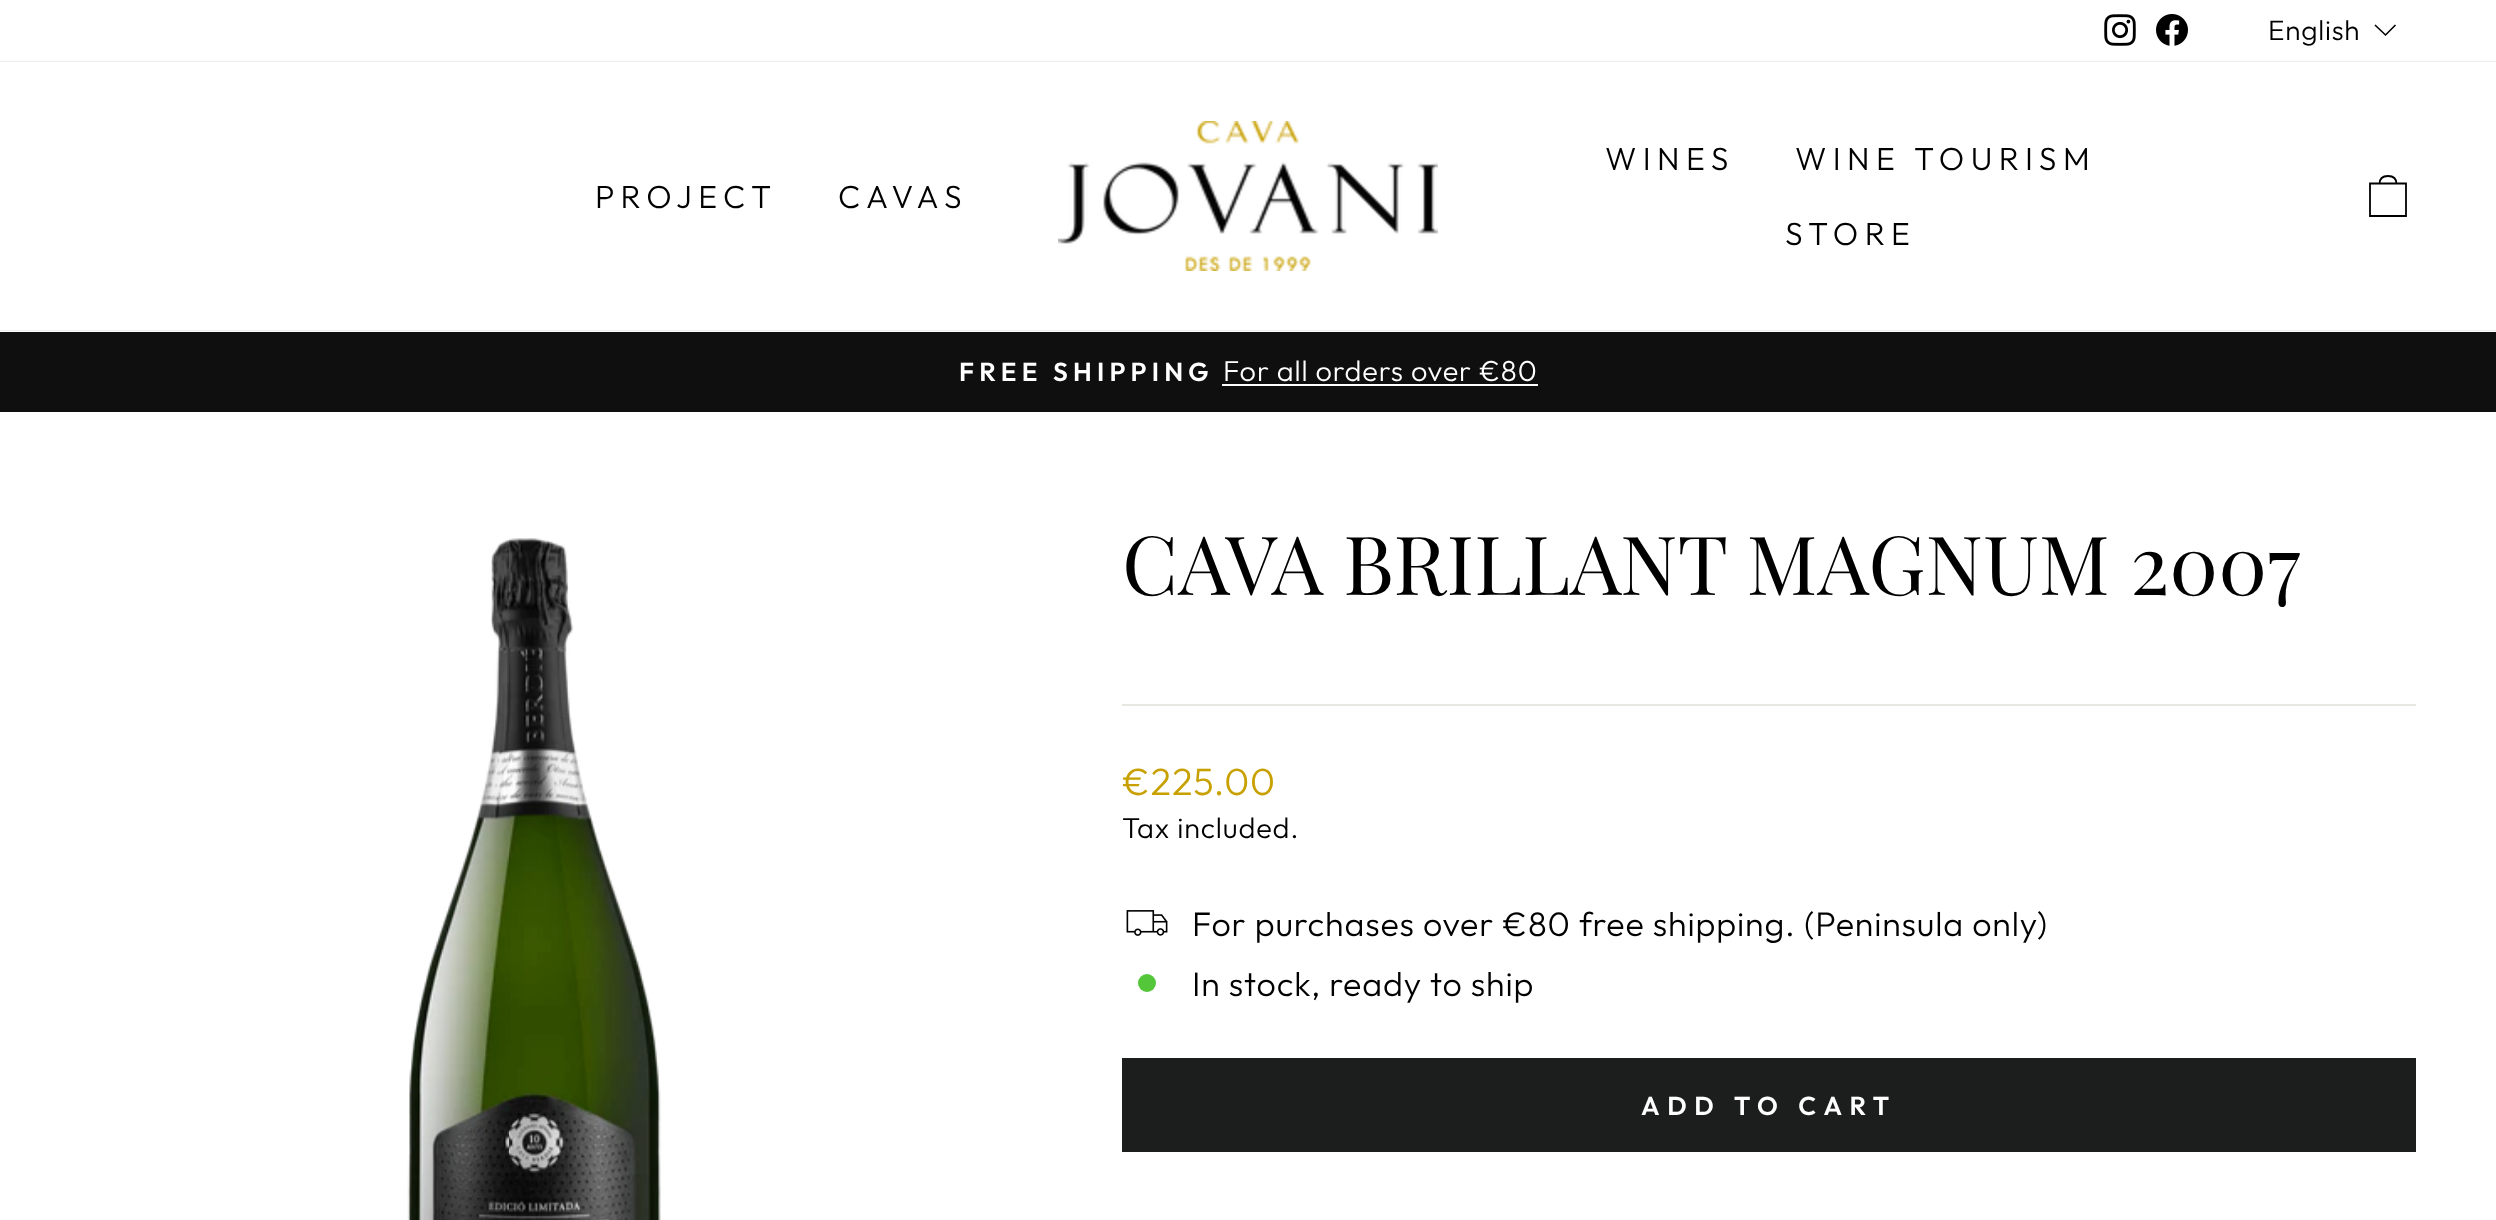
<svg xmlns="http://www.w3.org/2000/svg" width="2496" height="1220">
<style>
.a{font:300 28px Outfit;letter-spacing:0.75px;fill:#000}
.b{font:300 32px Outfit;letter-spacing:6.4px;fill:#000}
.c{font:600 26px Outfit;letter-spacing:5.25px;fill:#fff}
.d{font:300 28.9px Outfit;letter-spacing:0.85px;fill:#fff}
.e{font:81.6px Playfair Display;fill:#000}
.f{font:300 38px Outfit;letter-spacing:0.85px;fill:#c8a100}
.g{font:300 28.9px Outfit;letter-spacing:0.85px;fill:#000}
.h{font:300 34px Outfit;letter-spacing:0.85px;fill:#000}
.i{font:600 26px Outfit;letter-spacing:7.75px;fill:#fff}
</style>
<defs>
<clipPath id="clip1"><path d="M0 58h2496v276h-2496zm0 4h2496v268h-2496z" clip-rule="evenodd"/></clipPath>
</defs>
<rect width="100%" height="100%" fill="#fff"/>
<image href="1.png" x="2104" y="14" width="32" height="32"/>
<image href="2.png" x="2156" y="14" width="32" height="32"/>
<path fill="none" stroke="#000" stroke-width="1.6" d="M2375 25l10.5 10l10-10"/>
<path fill="#0f0f0f" d="M0 332h2496v80H0z"/>
<g clip-path="url(#clip1)">
<path fill="#00000033" filter="blur(1px)" d="M0 62h2496v268H0z"/>
</g>
<image href="3.png" x="1058" y="121" width="380" height="150"/>
<path fill="none" stroke="#000" stroke-width="1.8" d="M2370 183.5h36v32.5h-36zm9.5 .5c0-6.5 4-8 8.5-8c4.5 0 8.5 1.5 8.5 8"/>
<path fill="#fff" d="M1222 384h316v2H1222z"/>
<image href="4.png" x="407" y="538" width="254" height="682"/>
<path fill="#e8e8e1" d="M1122 704h1294v2H1122z"/>
<image href="5.png" x="1126" y="910" width="42" height="26"/>
<circle fill="#54c63a" cx="1147" cy="983" r="9"/>
<path fill="#1c1d1d" d="M1122 1058h1294v94H1122z"/>
<text class="a" x="2268" y="40">English</text>
<text class="b" x="595" y="208">PROJECT</text>
<text class="b" x="838" y="208">CAVAS</text>
<text class="b" x="1605" y="170">WINES</text>
<text class="b" x="1795" y="170">WINE TOURISM</text>
<text class="b" x="1785" y="245">STORE</text>
<text class="c" x="959" y="381">FREE SHIPPING</text>
<text class="d" x="1223" y="381">For all orders over €80</text>
<text class="e" x="1122" y="595">CAVA BRILLANT MAGNUM 2007</text>
<text class="f" x="1122" y="795">€225.00</text>
<text class="g" x="1122" y="838">Tax included.</text>
<text class="h" x="1192" y="936">For purchases over €80 free shipping. (Peninsula only)</text>
<text class="h" x="1192" y="996">In stock, ready to ship</text>
<text class="i" x="1641" y="1115">ADD TO CART</text>
</svg>
